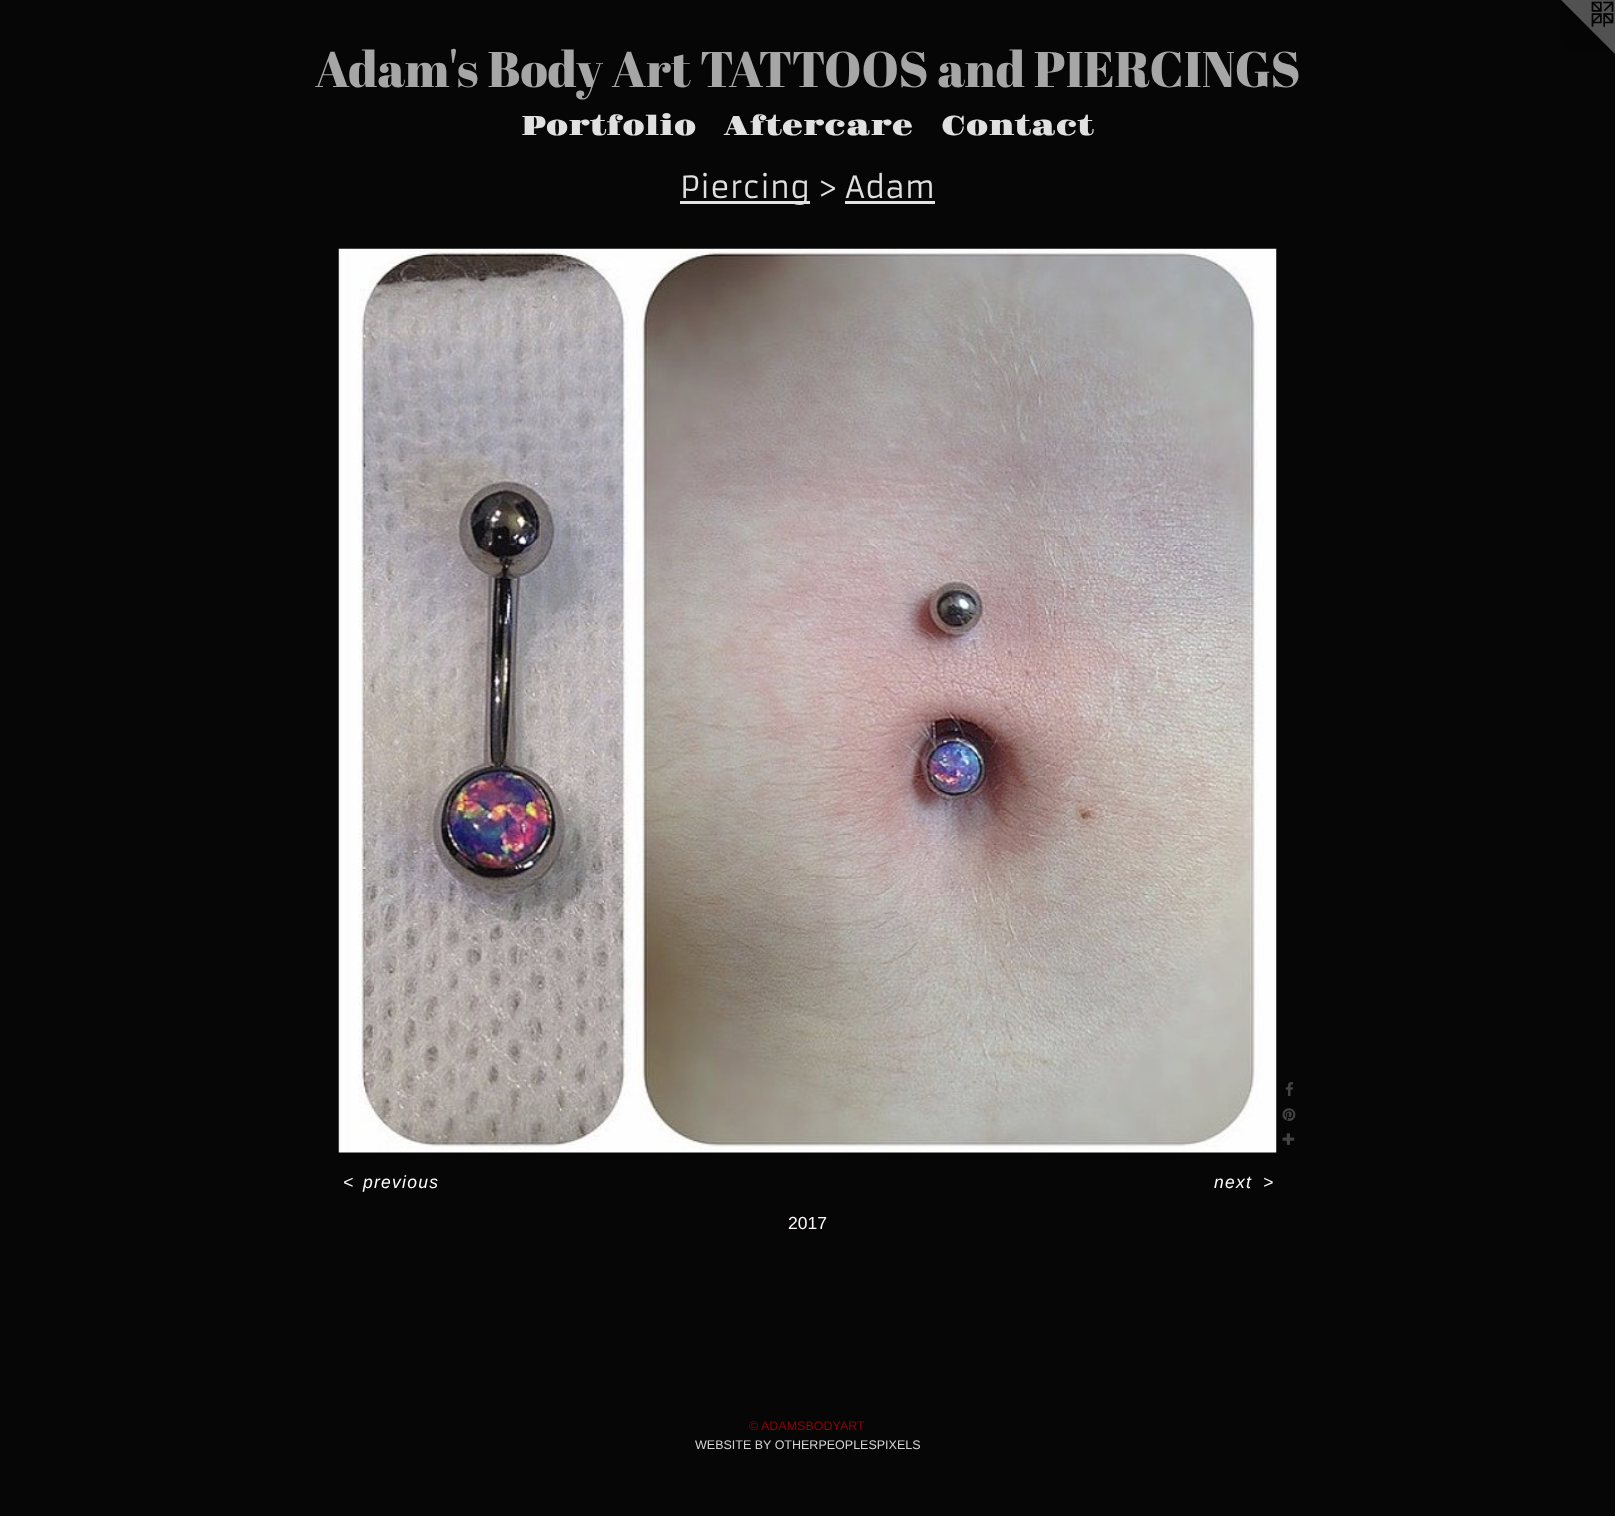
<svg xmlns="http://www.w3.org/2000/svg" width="1615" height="1516">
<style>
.a{font:50px Abril Fatface;fill:#a6a6a6}
.b{font:27.5px Gravitas One;fill:#e0e0e0}
.c{font:30px Armata;fill:#e0e0e0}
.d{font:italic 17.5px Liberation Sans;letter-spacing:1.25px;fill:#fffafa}
.e{font:17.5px Liberation Sans;fill:#fffafa}
.f{font:12.5px Liberation Sans;fill:#900404}
.g{font:12.5px Liberation Sans;fill:#d5d2d2}
</style>
<rect width="100%" height="100%" fill="#060606"/>
<image href="1.png" x="1561" y="0" width="54" height="54"/>
<path fill="#e3e3e3" d="M680 201h130v3H680z"/>
<image href="2.png" x="338" y="248" width="939" height="905"/>
<image href="3.png" x="1285" y="1082" width="8" height="14"/>
<image href="4.png" x="1282" y="1108" width="14" height="13"/>
<image href="5.png" x="1282" y="1133" width="13" height="12"/>
<text class="a" x="315" y="87">Adam's Body Art TATTOOS and PIERCINGS</text>
<text class="b" x="521" y="135">Portfolio</text>
<text class="b" x="724" y="135">Aftercare</text>
<text class="b" x="941" y="135">Contact</text>
<text class="c" x="680" y="198">Piercing &gt; Adam</text>
<path fill="#e3e3e3" d="M845 201h90v3H845z"/>
<text class="d" x="343" y="1188">&lt;</text>
<text class="d" x="363" y="1188">previous</text>
<text class="d" x="1214" y="1188">next</text>
<text class="d" x="1263" y="1188">&gt;</text>
<text class="e" x="788" y="1229">2017</text>
<text class="f" x="749" y="1430">© ADAMSBODYART</text>
<text class="g" x="695" y="1449">WEBSITE BY OTHERPEOPLESPIXELS</text>
</svg>
